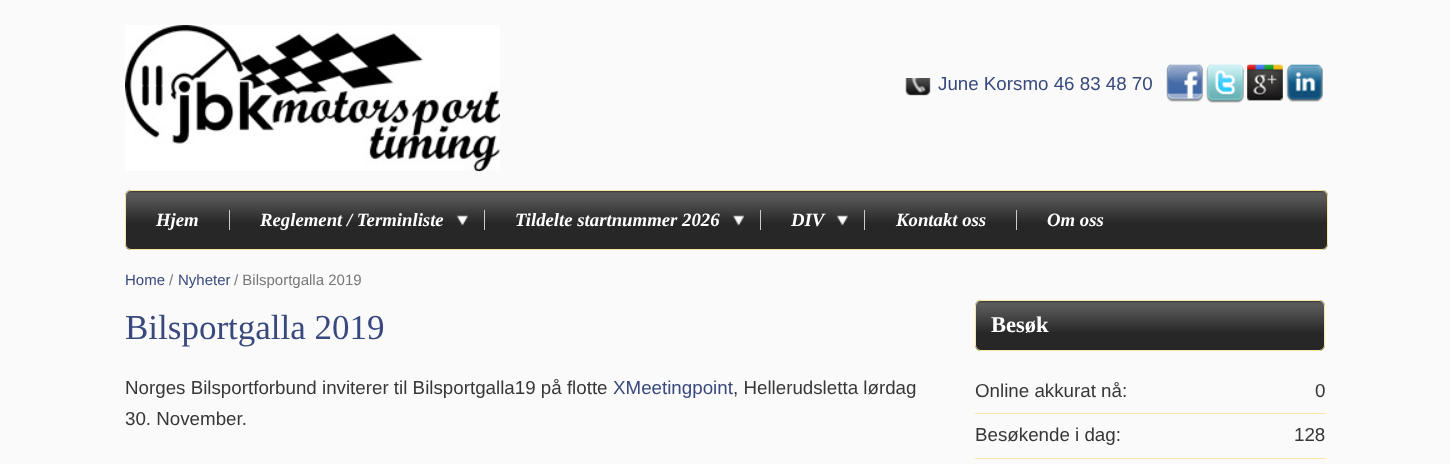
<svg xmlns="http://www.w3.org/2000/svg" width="1450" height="464">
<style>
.a{font:18.75px Liberation Sans;fill:#39497d}
.b{font:italic bold 18.75px Liberation Serif;fill:#fff}
.c{font:15px Liberation Sans;fill:#39497d}
.d{font:15px Liberation Sans;fill:#777}
.e{font:35px Liberation Serif;fill:#39497d}
.f{font:18.75px Liberation Sans;fill:#373737}
.g{font:bold 22.5px Liberation Serif;fill:#fff}
</style>
<rect width="100%" height="100%" fill="#fafafa"/>
<image href="1.png" x="125" y="25" width="375" height="147"/>
<image href="2.png" x="905" y="78" width="26" height="18"/>
<image href="3.png" x="1166" y="64" width="37" height="38"/>
<image href="4.png" x="1206" y="64" width="38" height="39"/>
<image href="5.png" x="1247" y="64" width="36" height="37"/>
<image href="6.png" x="1286" y="64" width="37" height="38"/>
<rect fill="#272727" x="125" y="190" width="1203" height="60" rx="6"/>
<image href="7.png" x="125" y="191" width="1203" height="31"/>
<rect fill="none" stroke="#f9e79f" x="125.5" y="190.5" width="1202" height="59" rx="5.5"/>
<path fill="#ccc" d="M229 210h1v20H229z"/>
<path fill="#ccc" d="M484 210h1v20H484z"/>
<image href="8.png" x="456" y="215" width="12" height="11"/>
<path fill="#ccc" d="M760 210h1v20H760z"/>
<image href="9.png" x="732" y="215" width="13" height="11"/>
<path fill="#ccc" d="M864 210h1v20H864z"/>
<image href="8.png" x="836" y="215" width="12" height="11"/>
<path fill="#ccc" d="M1016 210h1v20H1016z"/>
<rect fill="#272727" x="975" y="300" width="350" height="51" rx="6"/>
<image href="10.png" x="975" y="301" width="350" height="31"/>
<rect fill="none" stroke="#f9e79f" x="975.5" y="300.5" width="349" height="50" rx="5.5"/>
<path fill="#f9e79f" d="M975 413h350v1H975z"/>
<path fill="#f9e79f" d="M975 458h350v1H975z"/>
<text class="a" x="938" y="90">June Korsmo 46 83 48 70</text>
<text class="b" x="156" y="226">Hjem</text>
<text class="b" x="260" y="226">Reglement / Terminliste</text>
<text class="b" x="515" y="226">Tildelte startnummer 2026</text>
<text class="b" x="791" y="226">DIV</text>
<text class="b" x="896" y="226">Kontakt oss</text>
<text class="b" x="1047" y="226">Om oss</text>
<text class="c" x="125" y="285">Home</text>
<text class="d" x="169" y="285">/</text>
<text class="c" x="178" y="285">Nyheter</text>
<text class="d" x="234" y="285">/ Bilsportgalla 2019</text>
<text class="e" x="125" y="339">Bilsportgalla 2019</text>
<text class="f" x="125" y="394">Norges Bilsportforbund inviterer til Bilsportgalla19 på flotte</text>
<text class="a" x="613" y="394">XMeetingpoint</text>
<text class="f" x="733" y="394">, Hellerudsletta lørdag</text>
<text class="f" x="125" y="425">30. November.</text>
<text class="g" x="991" y="332">Besøk</text>
<text class="f" x="975" y="397">Online akkurat nå:</text>
<text class="f" x="1315" y="397">0</text>
<text class="f" x="975" y="441">Besøkende i dag:</text>
<text class="f" x="1294" y="441">128</text>
</svg>
